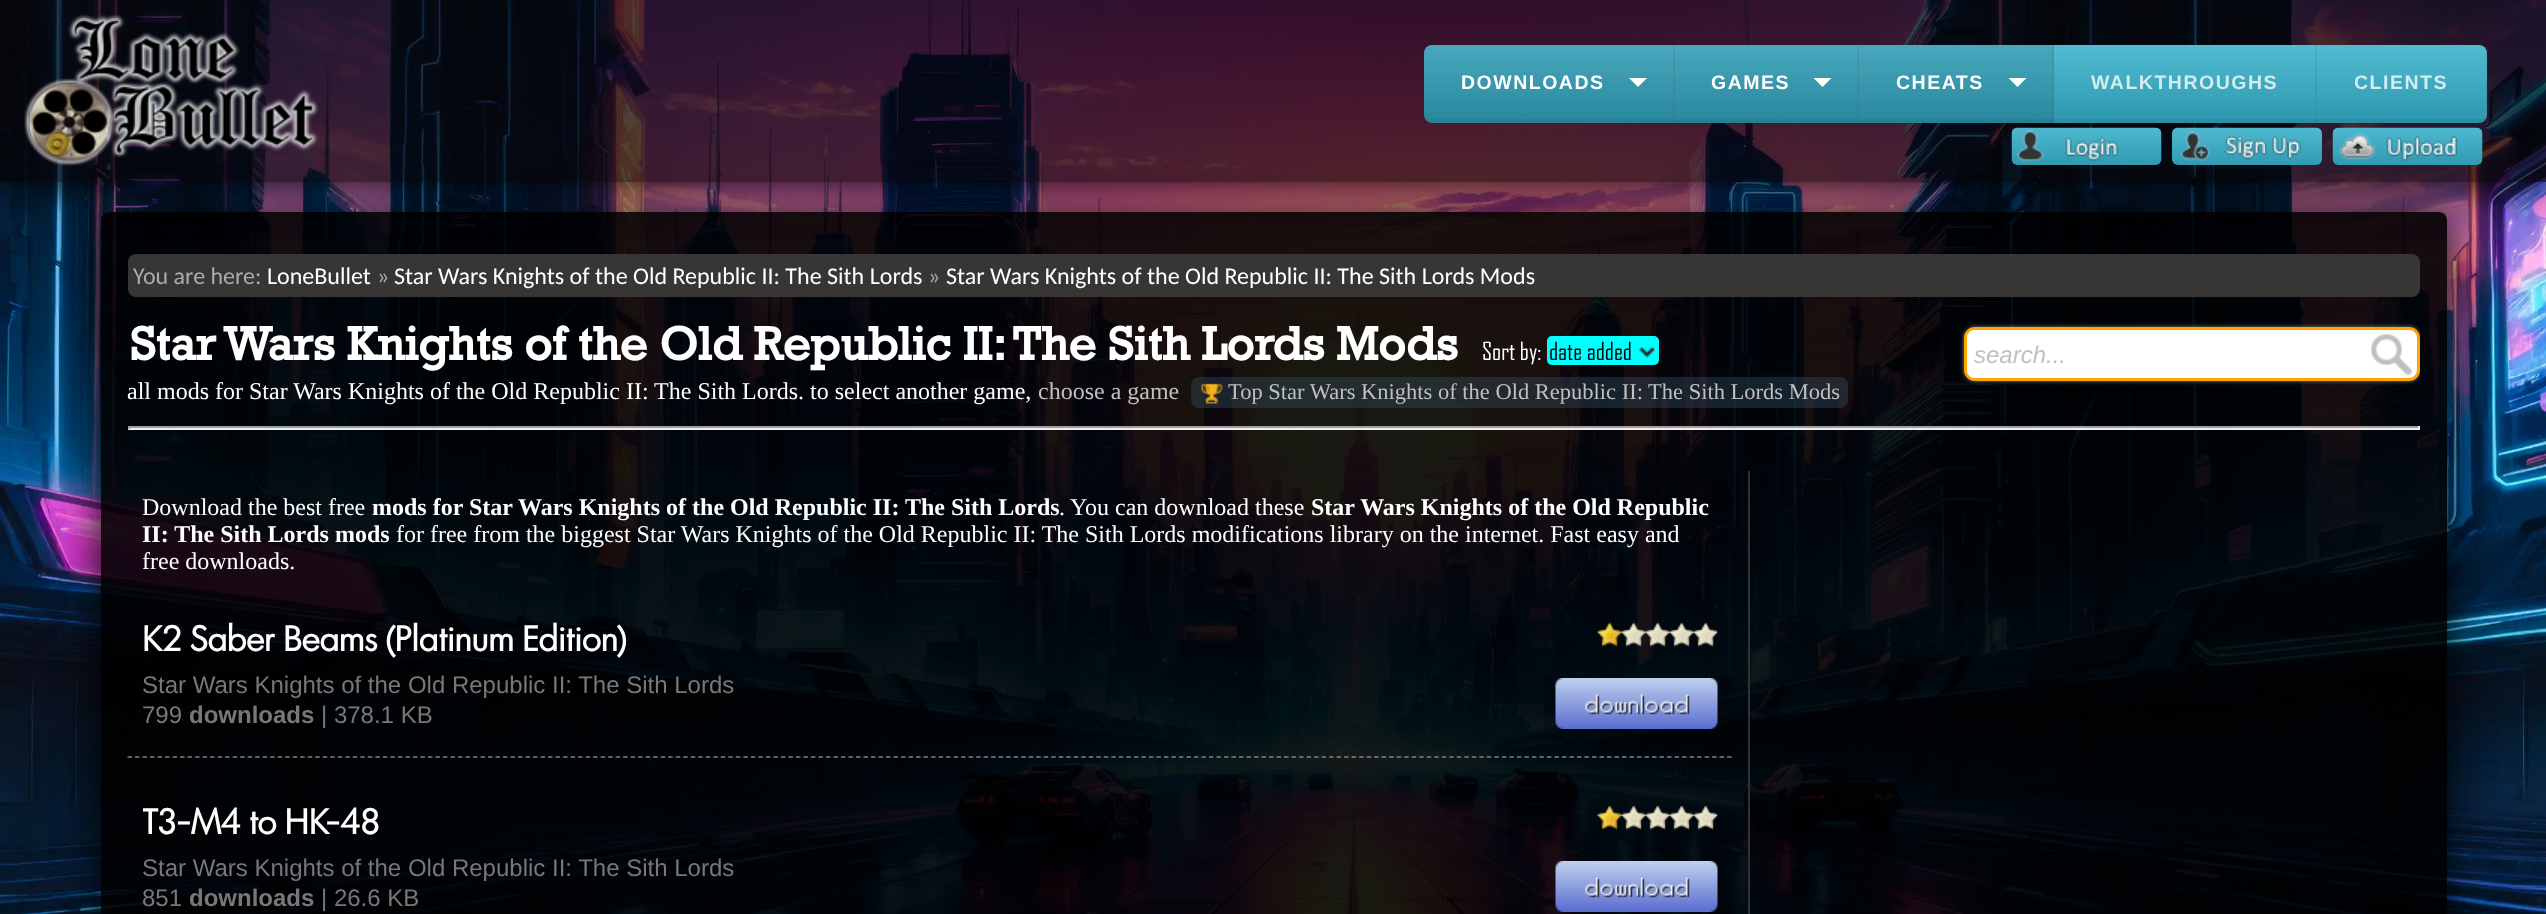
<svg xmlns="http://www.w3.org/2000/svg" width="2546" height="914">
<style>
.a{font:bold 19.5px Liberation Sans;letter-spacing:1.5px;fill:#fff}
.b{font:bold 19.5px Liberation Sans;letter-spacing:1.5px;fill:#d3eced}
.c{font:24px Carlito;fill:#aaabaa}
.d{font:24px Carlito;fill:#fff}
.e{font:bold 48px Rockwell;fill:#fff}
.f{font:24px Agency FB;fill:#fff}
.g{font:24px Agency FB;fill:#000}
.h{font:24px Liberation Serif;fill:#fff}
.i{font:24px Liberation Serif;fill:#c0c0c0}
.j{font:22.5px Liberation Serif;fill:#c0c0c0}
.k{font:italic 24px Liberation Sans;fill:#c0c0c0}
.l{font:bold 24px Liberation Serif;fill:#fff}
.m{font:bold 33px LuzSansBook;fill:#fff}
.n{font:24px Liberation Sans;fill:#787878}
.o{font:bold 24px Liberation Sans;fill:#787878}
</style>
<defs>
<clipPath id="clip1"><path d="M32 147h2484v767h-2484zm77 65h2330c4.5 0 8 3.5 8 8v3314c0 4.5-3.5 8-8 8h-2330c-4.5 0-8-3.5-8-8v-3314c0-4.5 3.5-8 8-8z" clip-rule="evenodd"/></clipPath>
<clipPath id="clip2"><path d="M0 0h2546v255h-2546zm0 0h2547v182h-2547z" clip-rule="evenodd"/></clipPath>
<linearGradient id="g1" gradientUnits="userSpaceOnUse" x1="1955" y1="45" x2="1955" y2="123"><stop offset="0" stop-color="#51bbd2"/><stop offset="1" stop-color="#2d97af"/></linearGradient>
<clipPath id="clip3"><path d="M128 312h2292v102H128z"/></clipPath>
<clipPath id="clip4"><path d="M143 806h1575v46H143z"/></clipPath>
</defs>
<rect width="100%" height="100%" fill="#fff"/>
<image href="1.png" x="0" y="0" width="2546" height="914"/>
<g clip-path="url(#clip1)">
<rect fill="#000" filter="blur(22.5px)" x="101" y="216" width="2346" height="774" rx="8"/>
</g>
<rect fill="#000000e6" x="101" y="212" width="2346" height="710" rx="8"/>
<rect fill="#383535" x="128" y="254" width="2292" height="43" rx="8"/>
<g clip-path="url(#clip2)">
<path fill="#000" filter="blur(22.5px)" d="M0 5h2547v181H0z"/>
</g>
<path fill="#050000b3" d="M0 0h2546v182H0z"/>
<image href="2.png" x="24" y="14" width="295" height="156"/>
<rect fill="url(#g1)" x="1424" y="45" width="1063" height="78" rx="8"/>
<path fill="#0000000d" d="M1424 119h1063v5H1424z"/>
<path fill="#0000001a" d="M1424 45h250v78H1424z"/>
<path fill="#5050501f" d="M1673 45h2v78H1673z"/>
<path fill="#fff" d="M1629 78h18l-9 9z"/>
<path fill="#0000001a" d="M1674 45h185v78H1674z"/>
<path fill="#5050501f" d="M1857 45h2v78H1857z"/>
<path fill="#fff" d="M1813.5 78h18l-9 9z"/>
<path fill="#0000001a" d="M1859 45h195v78H1859z"/>
<path fill="#5050501f" d="M2052 45h2v78H2052z"/>
<path fill="#fff" d="M2008.5 78h18l-9 9z"/>
<path fill="#5050501f" d="M2315 45h2v78H2315z"/>
<path fill="#5050501f" d="M2486 45h2v78H2486z"/>
<image href="3.png" x="2011" y="127" width="151" height="38"/>
<image href="4.png" x="2172" y="127" width="150" height="38"/>
<image href="5.png" x="2332" y="127" width="151" height="38"/>
<rect fill="#0ff" x="1547" y="336" width="112" height="29" rx="5"/>
<image href="6.png" x="1639" y="346" width="16" height="12"/>
<rect fill="#314d6266" x="1191" y="377" width="657" height="31" rx="8"/>
<image href="7.png" x="1201" y="383" width="22" height="21"/>
<g clip-path="url(#clip3)">
<rect fill="#808080" filter="blur(2px)" x="1964" y="327" width="456" height="54" rx="11"/>
</g>
<rect fill="#fff" stroke="#ffa500" stroke-width="3" x="1965.5" y="328.5" width="453" height="51" rx="9.5"/>
<path fill="#fff" d="M1975 330h392v48h-392c-4.5 0-8-3.5-8-8v-32c0-4.5 3.5-8 8-8z"/>
<image href="8.png" x="2371" y="334" width="42" height="42"/>
<path fill="#9f9f9f" d="M128 426h2292v2H128z"/>
<path fill="#eee" d="M2418 426h2v3H2418z"/>
<path fill="#eee" d="M128 428h2292v2H128z"/>
<path fill="#9f9f9f" d="M128 426h2v3H128z"/>
<path fill="#323232" d="M1748 471h2v443H1748z"/>
<path fill="none" stroke="#808080" stroke-width="1.5" stroke-dasharray="4.5 3.01" d="M127.5 757h1605"/>
<image href="9.png" x="1597" y="622" width="121" height="25"/>
<image href="10.png" x="1555" y="678" width="163" height="51"/>
<image href="11.png" x="1597" y="805" width="121" height="25"/>
<image href="12.png" x="1555" y="861" width="163" height="51"/>
<text class="a" x="1461" y="89">DOWNLOADS</text>
<text class="a" x="1711" y="89">GAMES</text>
<text class="a" x="1896" y="89">CHEATS</text>
<text class="b" x="2091" y="89">WALKTHROUGHS</text>
<text class="b" x="2354" y="89">CLIENTS</text>
<text class="c" x="133" y="284">You are here:</text>
<text class="d" x="267" y="284">LoneBullet</text>
<text class="c" x="377" y="284">»</text>
<text class="d" x="394" y="284">Star Wars Knights of the Old Republic II: The Sith Lords</text>
<text class="c" x="928" y="284">»</text>
<text class="d" x="946" y="284">Star Wars Knights of the Old Republic II: The Sith Lords Mods</text>
<text class="e" x="130" y="360">Star Wars Knights of the Old Republic II: The Sith Lords Mods</text>
<text class="f" x="1482" y="360">Sort by:</text>
<text class="g" x="1549" y="360">date added</text>
<text class="h" x="127" y="399">all mods for Star Wars Knights of the Old Republic II: The Sith Lords. to select another game,</text>
<text class="i" x="1038" y="399">choose a game</text>
<text class="j" x="1228" y="399">Top Star Wars Knights of the Old Republic II: The Sith Lords Mods</text>
<text class="k" x="1974" y="363">search...</text>
<text class="h" x="142" y="515">Download the best free</text>
<text class="l" x="372" y="515">mods for Star Wars Knights of the Old Republic II: The Sith Lords</text>
<text class="h" x="1059" y="515">. You can download these</text>
<text class="l" x="1311" y="515">Star Wars Knights of the Old Republic</text>
<text class="l" x="142" y="542">II: The Sith Lords mods</text>
<text class="h" x="396" y="542">for free from the biggest Star Wars Knights of the Old Republic II: The Sith Lords modifications library on the internet. Fast easy and</text>
<text class="h" x="142" y="569">free downloads.</text>
<text class="m" x="142" y="651">K2 Saber Beams (Platinum Edition)</text>
<text class="n" x="142" y="693">Star Wars Knights of the Old Republic II: The Sith Lords</text>
<text class="n" x="142" y="723">799</text>
<text class="o" x="189" y="723">downloads</text>
<text class="n" x="321" y="723">| 378.1 KB</text>
<g clip-path="url(#clip4)">
<text class="m" x="142" y="834">T3-M4 to HK-48</text>
</g>
<text class="n" x="142" y="876">Star Wars Knights of the Old Republic II: The Sith Lords</text>
<text class="n" x="142" y="906">851</text>
<text class="o" x="189" y="906">downloads</text>
<text class="n" x="321" y="906">| 26.6 KB</text>
</svg>
